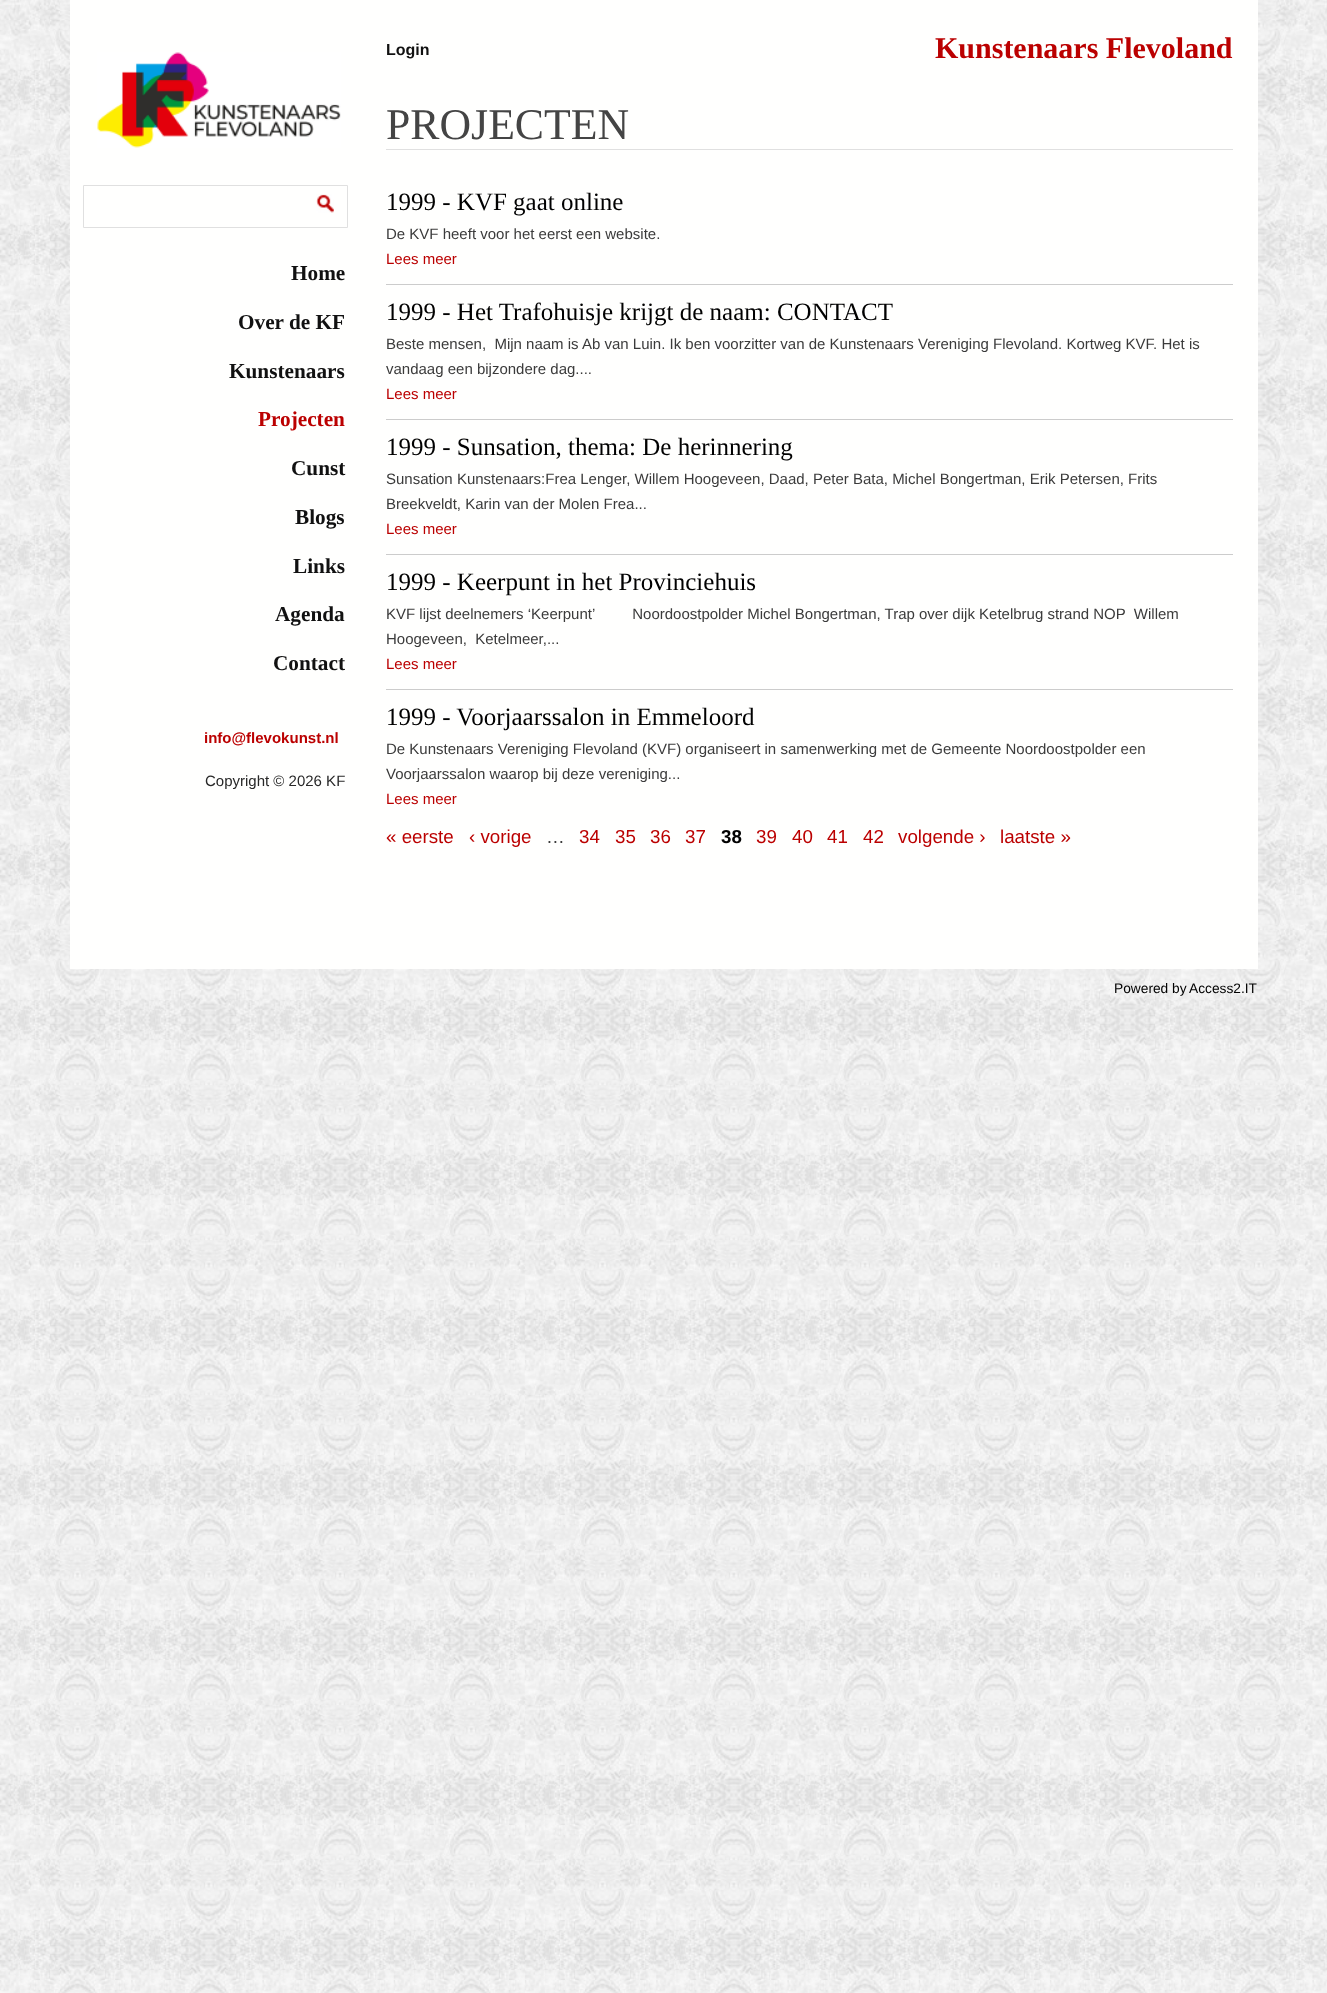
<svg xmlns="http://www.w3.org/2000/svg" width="1327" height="1993">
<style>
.a{font:bold 21.25px Liberation Serif;fill:#111}
.b{font:bold 21.25px Liberation Serif;fill:#b00}
.c{font:bold 15px Liberation Sans;fill:#b00}
.d{font:15px Liberation Sans;fill:#282828}
.e{font:bold 16px Liberation Sans;fill:#111}
.f{font:bold 30px Liberation Serif;fill:#b00}
.g{font:43.75px Liberation Serif;fill:#444}
.h{font:25px Liberation Serif;fill:#010101}
.i{font:15px Liberation Sans;fill:#3b3b3b}
.j{font:15px Liberation Sans;fill:#b00}
.k{font:18.75px Liberation Sans;fill:#b00}
.l{font:18.75px Liberation Sans;fill:#3b3b3b}
.m{font:bold 18.75px Liberation Sans;fill:#010101}
.n{font:13.75px Liberation Sans;fill:#010101}
</style>
<rect width="100%" height="100%" fill="#fff"/>
<image href="1.png" x="0" y="0" width="1327" height="1993"/>
<path fill="#fffffe" d="M70 0h1188v969H70z"/>
<image href="2.png" x="97" y="52" width="244" height="96"/>
<path fill="none" stroke="#e0e0e0" d="M83.5 185.5h264v42H83.5z"/>
<image href="3.png" x="316" y="194" width="18" height="19"/>
<path fill="#e0e0e0" d="M386 149h847v1H386z"/>
<path fill="#ccc" d="M386 284h847v1H386z"/>
<path fill="#ccc" d="M386 419h847v1H386z"/>
<path fill="#ccc" d="M386 554h847v1H386z"/>
<path fill="#ccc" d="M386 689h847v1H386z"/>
<text class="a" x="291" y="280">Home</text>
<text class="a" x="238" y="329">Over de KF</text>
<text class="a" x="229" y="378">Kunstenaars</text>
<text class="b" x="258" y="426">Projecten</text>
<text class="a" x="291" y="475">Cunst</text>
<text class="a" x="295" y="524">Blogs</text>
<text class="a" x="293" y="573">Links</text>
<text class="a" x="275" y="621">Agenda</text>
<text class="a" x="273" y="670">Contact</text>
<text class="c" x="204" y="743">info@flevokunst.nl</text>
<text class="d" x="205" y="786">Copyright © 2026 KF</text>
<text class="e" x="386" y="55">Login</text>
<text class="f" x="935" y="58">Kunstenaars Flevoland</text>
<text class="g" x="386" y="139">PROJECTEN</text>
<text class="h" x="386" y="210">1999 - KVF gaat online</text>
<text class="i" x="386" y="239">De KVF heeft voor het eerst een website.</text>
<text class="j" x="386" y="264">Lees meer</text>
<text class="h" x="386" y="320">1999 - Het Trafohuisje krijgt de naam: CONTACT</text>
<text class="i" xml:space="preserve" x="386" y="349">Beste mensen,  Mijn naam is Ab van Luin. Ik ben voorzitter van de Kunstenaars Vereniging Flevoland. Kortweg KVF. Het is</text>
<text class="i" x="386" y="374">vandaag een bijzondere dag....</text>
<text class="j" x="386" y="399">Lees meer</text>
<text class="h" x="386" y="455">1999 - Sunsation, thema: De herinnering</text>
<text class="i" x="386" y="484">Sunsation Kunstenaars:Frea Lenger, Willem Hoogeveen, Daad, Peter Bata, Michel Bongertman, Erik Petersen, Frits</text>
<text class="i" x="386" y="509">Breekveldt, Karin van der Molen Frea...</text>
<text class="j" x="386" y="534">Lees meer</text>
<text class="h" x="386" y="590">1999 - Keerpunt in het Provinciehuis</text>
<text class="i" xml:space="preserve" x="386" y="619">KVF lijst deelnemers ‘Keerpunt’         Noordoostpolder Michel Bongertman, Trap over dijk Ketelbrug strand NOP  Willem</text>
<text class="i" xml:space="preserve" x="386" y="644">Hoogeveen,  Ketelmeer,...</text>
<text class="j" x="386" y="669">Lees meer</text>
<text class="h" x="386" y="725">1999 - Voorjaarssalon in Emmeloord</text>
<text class="i" x="386" y="754">De Kunstenaars Vereniging Flevoland (KVF) organiseert in samenwerking met de Gemeente Noordoostpolder een</text>
<text class="i" x="386" y="779">Voorjaarssalon waarop bij deze vereniging...</text>
<text class="j" x="386" y="804">Lees meer</text>
<text class="k" x="386" y="843">« eerste</text>
<text class="k" x="469" y="843">‹ vorige</text>
<text class="l" x="546" y="843">…</text>
<text class="k" x="579" y="843">34</text>
<text class="k" x="615" y="843">35</text>
<text class="k" x="650" y="843">36</text>
<text class="k" x="685" y="843">37</text>
<text class="m" x="721" y="843">38</text>
<text class="k" x="756" y="843">39</text>
<text class="k" x="792" y="843">40</text>
<text class="k" x="827" y="843">41</text>
<text class="k" x="863" y="843">42</text>
<text class="k" x="898" y="843">volgende ›</text>
<text class="k" x="1000" y="843">laatste »</text>
<text class="n" x="1114" y="993">Powered by</text>
<text class="n" x="1189" y="993">Access2.IT</text>
</svg>
